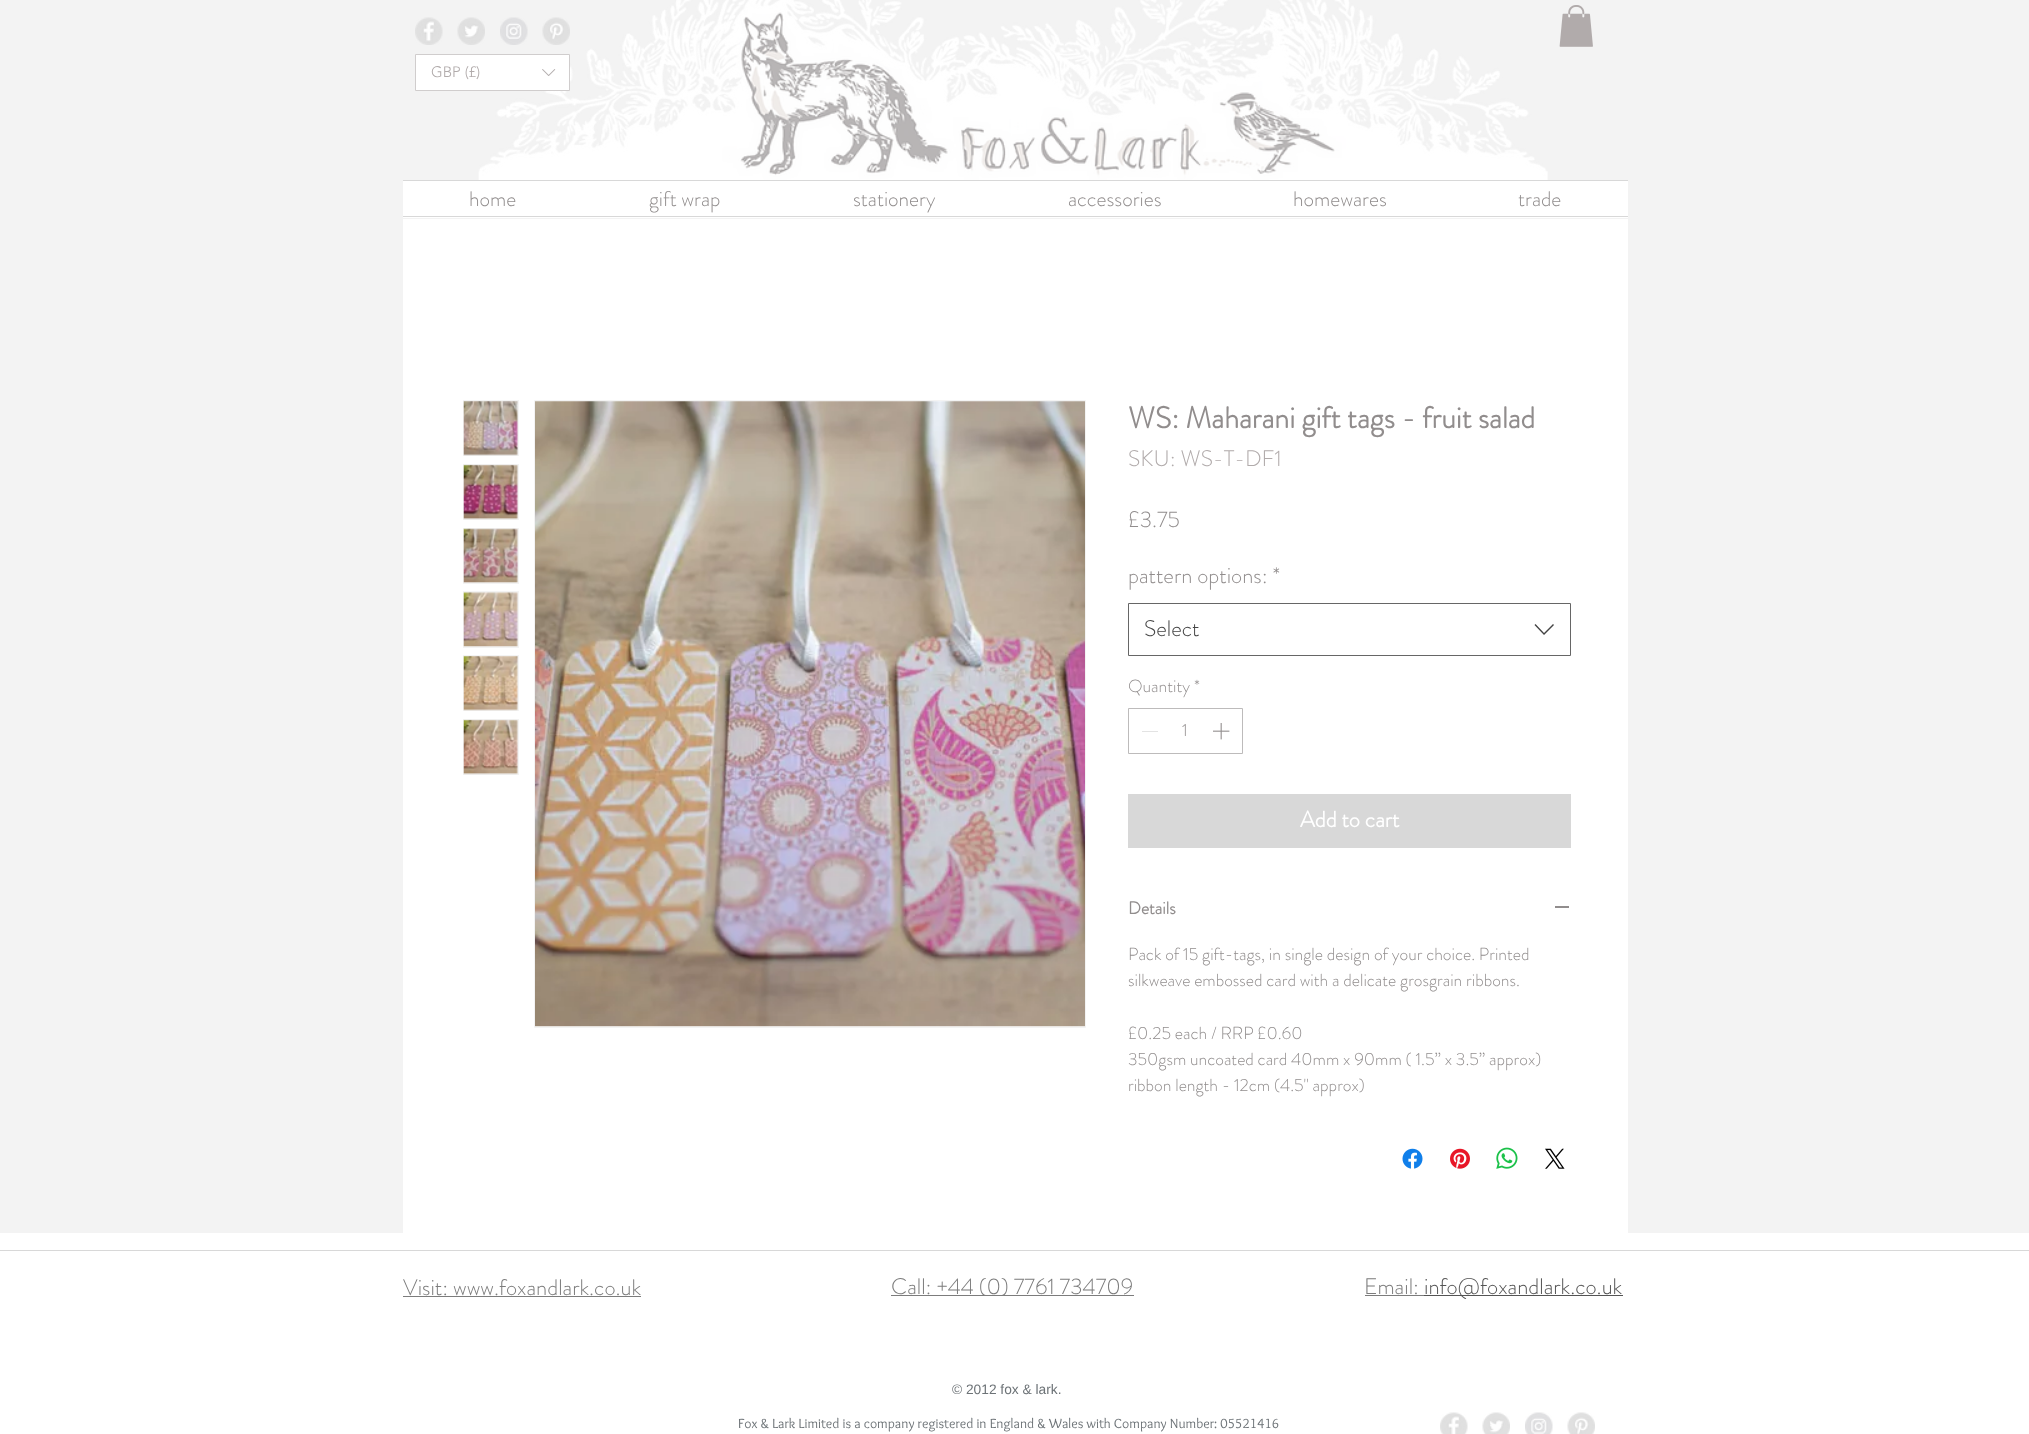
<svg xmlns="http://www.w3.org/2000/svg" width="2029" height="1434">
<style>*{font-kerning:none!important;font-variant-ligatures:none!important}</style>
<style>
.a{font:300 15px 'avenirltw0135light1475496';fill:#b1abab}
.b{font:300 21.25px 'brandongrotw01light';fill:#918d8d}
.c{font:bold 30px 'brandongrotw01light';fill:#918d8d}
.d{font:300 22.5px 'brandongrotw01light';fill:#b1abab}
.e{font:300 22.5px 'brandongrotw01light';fill:#918d8d}
.f{font:300 22.5px 'brandongrotw01light';fill:#444}
.g{font:300 17.5px 'brandongrotw01light';fill:#918d8d}
.h{font:bold 22.5px 'brandongrotw01light';fill:#fff}
.i{font:bold 17.5px 'brandongrotw01light';fill:#918d8d}
.j{font:300 22.5px 'brandongrotw01light';fill:#7c7c7c}
.k{font:300 22.5px 'brandongrotw01light';fill:#545454}
.l{font:13.75px Liberation Sans;fill:#6d7377}
.m{font:13.75px Overlock;fill:#6d7377}
</style>
<rect width="100%" height="100%" fill="#f3f3f3"/>
<image href="1.png" x="478" y="0" width="1070" height="180"/>
<image href="2.png" x="1559" y="5" width="34" height="42"/>
<image href="3.png" x="415" y="17" width="28" height="28"/>
<image href="4.png" x="457" y="17" width="28" height="28"/>
<image href="5.png" x="500" y="17" width="28" height="28"/>
<image href="6.png" x="542" y="17" width="28" height="28"/>
<path fill="#fff" stroke="#d0cdcd" d="M415.5 54.5h154v36H415.5z"/>
<image href="7.png" x="542" y="69" width="14" height="7"/>
<path fill="#fff" d="M403 181h1225v37H403z"/>
<path fill="#d8d8d8" d="M403 180h1225v1H403z"/>
<path fill="#d8d8d8" d="M403 216h1225v1H403z"/>
<path fill="#fff" d="M403 219h1225v1014H403z"/>
<path fill="#f3f3f3" d="M463 400h56v56H463z"/>
<image href="8.png" x="463" y="401" width="55" height="55"/>
<path fill="#f3f3f3" d="M463 464h56v56H463z"/>
<image href="9.png" x="463" y="464" width="55" height="56"/>
<path fill="#f3f3f3" d="M463 528h56v56H463z"/>
<image href="10.png" x="463" y="528" width="55" height="55"/>
<path fill="#f3f3f3" d="M463 591h56v57H463z"/>
<image href="11.png" x="463" y="592" width="55" height="55"/>
<path fill="#f3f3f3" d="M463 655h56v56H463z"/>
<image href="12.png" x="463" y="656" width="55" height="55"/>
<path fill="#f3f3f3" d="M463 719h56v56H463z"/>
<image href="13.png" x="463" y="719" width="55" height="56"/>
<path fill="none" stroke="#f3f3f3" d="M534.5 400.5h551v627H534.5z"/>
<image href="14.png" x="535" y="401" width="550" height="626"/>
<path fill="none" stroke="#666" d="M1128.5 603.5h442v52H1128.5z"/>
<path fill="#444" fill-rule="evenodd" d="M1553 624l1 1l-10 10l-9.5-10l1-1l8.5 9z"/>
<path fill="none" stroke="#bdbbbb" d="M1128.5 708.5h114v45H1128.5z"/>
<path fill="#e3e3e3" d="M1142 731h16v1H1142z"/>
<image href="15.png" x="1213" y="723" width="17" height="17"/>
<path fill="#d8d8d8" d="M1128 794h443v54H1128z"/>
<path fill="#918d8d" d="M1555 906h14v2H1555z"/>
<image href="16.png" x="1402" y="1148" width="21" height="21"/>
<image href="17.png" x="1450" y="1148" width="20" height="21"/>
<image href="18.png" x="1496" y="1147" width="22" height="22"/>
<image href="19.png" x="1545" y="1148" width="20" height="21"/>
<path fill="#fff" d="M0 1233h2029v201H0z"/>
<path fill="#d8d8d8" d="M0 1250h2029v1H0z"/>
<path fill="#7c7c7c" d="M403 1296h238v1H403z"/>
<path fill="#7c7c7c" d="M891 1295h243v1H891z"/>
<path fill="#7c7c7c" d="M1365 1295h59v1H1365z"/>
<path fill="#545454" d="M1424 1295h199v1H1424z"/>
<image href="20.png" x="1440" y="1412" width="28" height="22"/>
<image href="21.png" x="1482" y="1412" width="28" height="22"/>
<image href="22.png" x="1525" y="1412" width="28" height="22"/>
<image href="23.png" x="1567" y="1412" width="28" height="22"/>
<text class="a" x="431" y="77">GBP (£)</text>
<text class="b" x="469" y="206">home</text>
<text class="b" x="649" y="206">gift wrap</text>
<text class="b" x="853" y="206">stationery</text>
<text class="b" x="1068" y="206">accessories</text>
<text class="b" x="1293" y="206">homewares</text>
<text class="b" x="1518" y="206">trade</text>
<text class="c" x="1128" y="428">WS: Maharani gift tags - fruit salad</text>
<text class="d" x="1128" y="466">SKU: WS-T-DF1</text>
<text class="e" x="1128" y="527">£3.75</text>
<text class="e" x="1128" y="583">pattern options: *</text>
<text class="f" x="1144" y="636">Select</text>
<text class="g" x="1128" y="692">Quantity</text>
<text class="g" x="1194" y="692">*</text>
<text class="g" x="1182" y="736">1</text>
<text class="h" x="1300" y="827">Add to cart</text>
<text class="i" x="1128" y="914">Details</text>
<text class="g" x="1128" y="960">Pack of 15 gift-tags, in single design of your choice. Printed</text>
<text class="g" x="1128" y="986">silkweave embossed card with a delicate grosgrain ribbons.</text>
<text class="g" x="1128" y="1039">£0.25 each / RRP £0.60</text>
<text class="g" x="1128" y="1065">350gsm uncoated card 40mm x 90mm ( 1.5” x 3.5” approx)</text>
<text class="g" x="1128" y="1091">ribbon length - 12cm (4.5" approx)</text>
<text class="j" x="403" y="1295">Visit: www.foxandlark.co.uk</text>
<text class="j" x="891" y="1294">Call: +44 (0) 7761 734709</text>
<text class="j" x="1364" y="1294">Email:</text>
<text class="k" x="1424" y="1294">info@foxandlark.co.uk</text>
<text class="l" x="952" y="1394">© 2012 fox &amp; lark.</text>
<text class="m" x="738" y="1428">Fox &amp; Lark Limited is a company registered in England &amp; Wales with Company Number: 05521416</text>
</svg>
